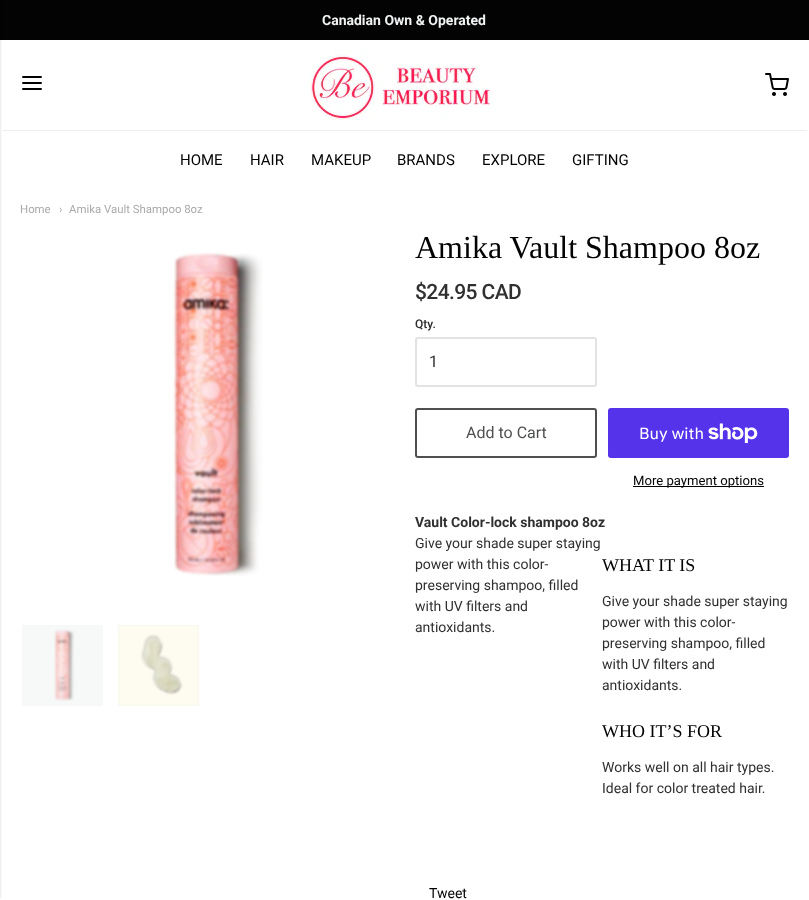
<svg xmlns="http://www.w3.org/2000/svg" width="809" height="900">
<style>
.a{font:bold 14px Roboto;fill:#f1f2f3}
.b{font:15px Roboto;fill:#030303}
.c{font:11.4px Roboto;fill:#a9aaaa}
.d{font:32px Liberation Serif;fill:#030303}
.e{font:500 21px Roboto;letter-spacing:-0.6px;fill:#303030}
.f{font:500 12px Roboto;fill:#2a2b2b}
.g{font:16px Roboto;fill:#303030}
.h{font:16px Roboto;fill:#4d4f51}
.i{font:16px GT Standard;fill:#fff}
.j{font:13.1px Roboto;fill:#030303}
.k{font:bold 14px Roboto;fill:#303030}
.l{font:14px Roboto;fill:#303030}
.m{font:18px Liberation Serif;fill:#030303}
.n{font:14px Roboto;fill:#030303}
</style>
<defs>
<clipPath id="clip1"><path d="M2 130h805v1H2z"/></clipPath>
</defs>
<rect width="100%" height="100%" fill="#fff"/>
<path fill="#030303" d="M0 0h809v40H0z"/>
<path fill="#00000033" filter="blur(1px)" d="M-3 2h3v896H-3z"/>
<g clip-path="url(#clip1)">
<path fill="#00000033" filter="blur(1px)" d="M2 44h805v86H2z"/>
</g>
<path fill="none" stroke="#030303" stroke-width="2" stroke-linecap="round" stroke-linejoin="round" d="M23 83h18m-18-6h18m-18 12h18"/>
<image href="1.png" x="310" y="50" width="181" height="70"/>
<image href="2.png" x="765" y="73" width="24" height="23"/>
<image href="3.png" x="173" y="252" width="90" height="324"/>
<rect fill="#f7f8f8" stroke="#fff" stroke-width="2" x="21" y="624" width="83" height="83" rx="2"/>
<image href="4.png" x="54" y="629" width="21" height="72"/>
<rect fill="#f1f3f4" stroke="#fff" stroke-width="2" x="117" y="624" width="83" height="83" rx="2"/>
<image href="5.png" x="118" y="625" width="81" height="81"/>
<rect fill="none" stroke="#e1e3e4" stroke-width="2" x="416" y="338" width="180" height="48" rx="2"/>
<rect fill="none" stroke="#4d4f51" stroke-width="2" x="416" y="409" width="180" height="48" rx="2"/>
<rect fill="#5433eb" x="608" y="408" width="181" height="50" rx="3"/>
<image href="6.png" x="708" y="423" width="50" height="20"/>
<path fill="#030303" d="M633 486h131v1H633z"/>
<text class="a" x="322" y="25">Canadian Own &amp; Operated</text>
<text class="b" x="180" y="165">HOME</text>
<text class="b" x="250" y="165">HAIR</text>
<text class="b" x="311" y="165">MAKEUP</text>
<text class="b" x="397" y="165">BRANDS</text>
<text class="b" x="482" y="165">EXPLORE</text>
<text class="b" x="572" y="165">GIFTING</text>
<text class="c" x="20" y="213">Home</text>
<text class="c" x="59" y="213">›</text>
<text class="c" x="69" y="213">Amika Vault Shampoo 8oz</text>
<text class="d" x="415" y="258">Amika Vault Shampoo 8oz</text>
<text class="e" x="415" y="299">$24.95 CAD</text>
<text class="f" x="415" y="328">Qty.</text>
<text class="g" x="429" y="367">1</text>
<text class="h" x="466" y="438">Add to Cart</text>
<text class="i" x="639" y="439">Buy with</text>
<text class="j" x="633" y="485">More payment options</text>
<text class="k" x="415" y="527">Vault Color-lock shampoo 8oz</text>
<text class="l" x="415" y="548">Give your shade super staying</text>
<text class="l" x="415" y="569">power with this color-</text>
<text class="l" x="415" y="590">preserving shampoo, filled</text>
<text class="l" x="415" y="611">with UV filters and</text>
<text class="l" x="415" y="632">antioxidants.</text>
<text class="m" x="602" y="571">WHAT IT IS</text>
<text class="l" x="602" y="606">Give your shade super staying</text>
<text class="l" x="602" y="627">power with this color-</text>
<text class="l" x="602" y="648">preserving shampoo, filled</text>
<text class="l" x="602" y="669">with UV filters and</text>
<text class="l" x="602" y="690">antioxidants.</text>
<text class="m" x="602" y="737">WHO IT’S FOR</text>
<text class="l" x="602" y="772">Works well on all hair types.</text>
<text class="l" x="602" y="793">Ideal for color treated hair.</text>
<text class="n" x="429" y="898">Tweet</text>
</svg>
